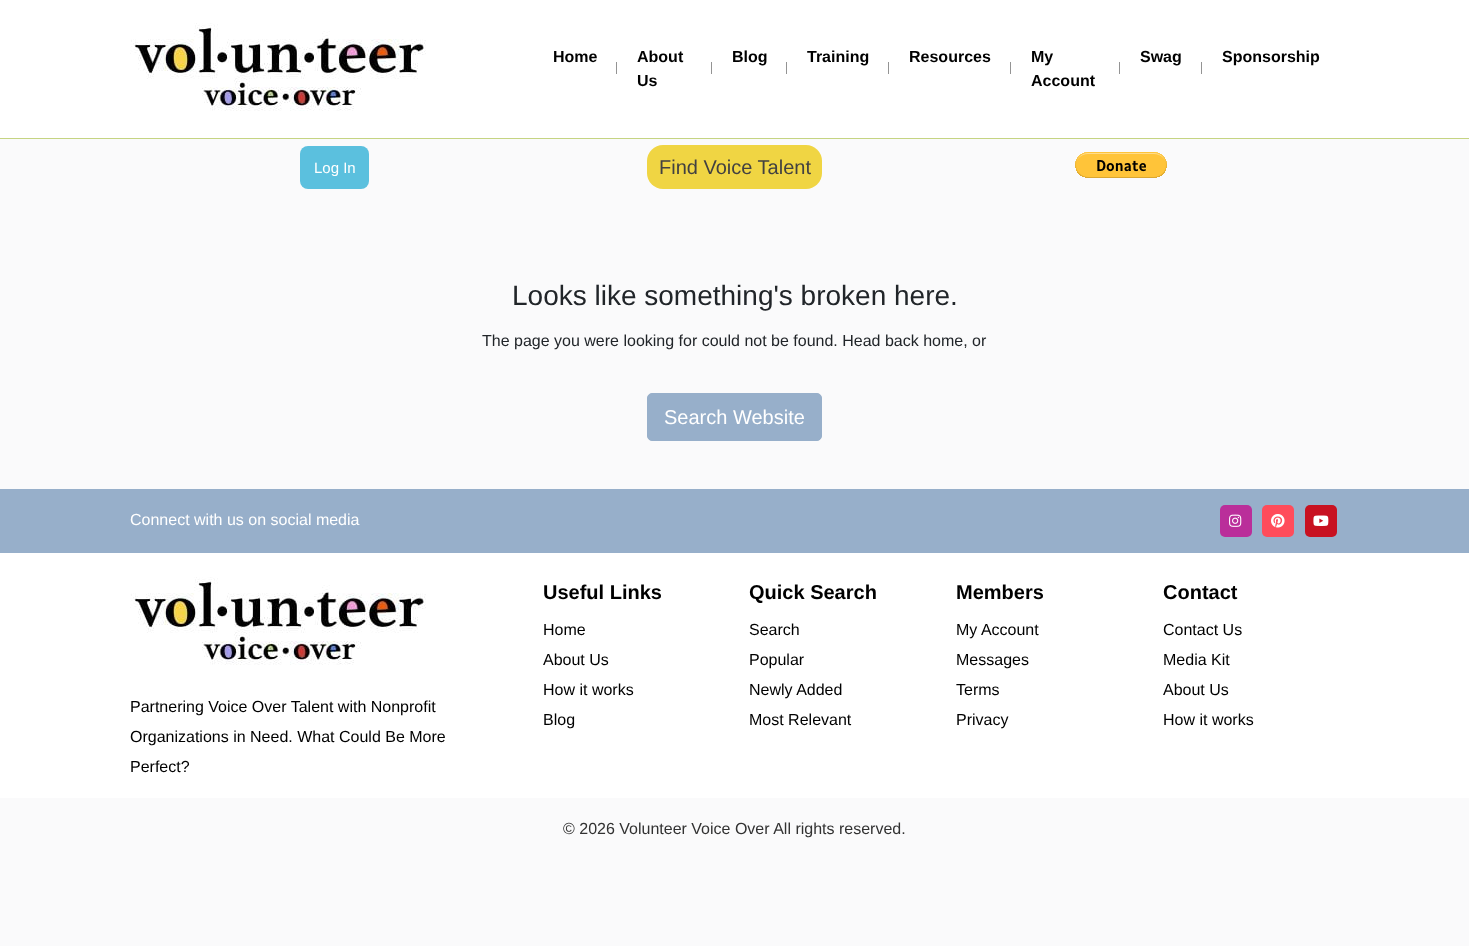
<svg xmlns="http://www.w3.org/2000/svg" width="1469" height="946">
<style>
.a{font:bold 16px Liberation Sans;fill:#000}
.b{font:15px Liberation Sans;fill:#fff}
.c{font:20px Liberation Sans;fill:#424141}
.d{font:28px Liberation Sans;fill:#212529}
.e{font:16px Liberation Sans;fill:#212529}
.f{font:20px Liberation Sans;fill:#fff}
.g{font:16px Liberation Sans;fill:#fff}
.h{font:bold 20px Liberation Sans;fill:#000}
.i{font:16px Liberation Sans;fill:#000}
.j{font:16px Liberation Sans;fill:#323232}
</style>
<rect width="100%" height="100%" fill="#fafafb"/>
<path fill="#fff" d="M0 0h1469v138H0z"/>
<path fill="#c5d482" d="M0 138h1469v1H0z"/>
<image href="1.png" x="130" y="23" width="296" height="88"/>
<path fill="#949494" d="M616 62h1v12H616z"/>
<path fill="#949494" d="M711 62h1v12H711z"/>
<path fill="#949494" d="M786 62h1v12H786z"/>
<path fill="#949494" d="M888 62h1v12H888z"/>
<path fill="#949494" d="M1010 62h1v12H1010z"/>
<path fill="#949494" d="M1119 62h1v12H1119z"/>
<path fill="#949494" d="M1201 62h1v12H1201z"/>
<rect fill="#5bc0de" x="300" y="146" width="69" height="43" rx="8"/>
<rect fill="#f0d543" x="647" y="145" width="175" height="44" rx="16"/>
<image href="2.png" x="1075" y="152" width="92" height="26"/>
<rect fill="#97afca" stroke="#97afca" x="647.5" y="393.5" width="174" height="47" rx="4.5"/>
<path fill="#97afca" d="M0 489h1469v64H0z"/>
<rect fill="#ba2e9a" x="1220" y="505" width="32" height="32" rx="5"/>
<image href="3.png" x="1229" y="514" width="13" height="13"/>
<rect fill="#ff4c5b" x="1262" y="505" width="32" height="32" rx="5"/>
<image href="4.png" x="1271" y="514" width="14" height="14"/>
<rect fill="#c81121" x="1305" y="505" width="32" height="32" rx="5"/>
<image href="5.png" x="1313" y="515" width="16" height="11"/>
<path fill="#fff" d="M0 553h1469v245H0z"/>
<image href="1.png" x="130" y="577" width="296" height="88"/>
<text class="a" x="553" y="62">Home</text>
<text class="a" x="637" y="62">About</text>
<text class="a" x="637" y="86">Us</text>
<text class="a" x="732" y="62">Blog</text>
<text class="a" x="807" y="62">Training</text>
<text class="a" x="909" y="62">Resources</text>
<text class="a" x="1031" y="62">My</text>
<text class="a" x="1031" y="86">Account</text>
<text class="a" x="1140" y="62">Swag</text>
<text class="a" x="1222" y="62">Sponsorship</text>
<text class="b" x="314" y="173">Log In</text>
<text class="c" x="659" y="174">Find Voice Talent</text>
<text class="d" x="512" y="305">Looks like something's broken here.</text>
<text class="e" x="482" y="346">The page you were looking for could not be found. Head back home, or</text>
<text class="f" x="664" y="424">Search Website</text>
<text class="g" x="130" y="525">Connect with us on social media</text>
<text class="h" x="543" y="599">Useful Links</text>
<text class="i" x="543" y="635">Home</text>
<text class="i" x="543" y="665">About Us</text>
<text class="i" x="543" y="695">How it works</text>
<text class="i" x="543" y="725">Blog</text>
<text class="h" x="749" y="599">Quick Search</text>
<text class="i" x="749" y="635">Search</text>
<text class="i" x="749" y="665">Popular</text>
<text class="i" x="749" y="695">Newly Added</text>
<text class="i" x="749" y="725">Most Relevant</text>
<text class="h" x="956" y="599">Members</text>
<text class="i" x="956" y="635">My Account</text>
<text class="i" x="956" y="665">Messages</text>
<text class="i" x="956" y="695">Terms</text>
<text class="i" x="956" y="725">Privacy</text>
<text class="h" x="1163" y="599">Contact</text>
<text class="i" x="1163" y="635">Contact Us</text>
<text class="i" x="1163" y="665">Media Kit</text>
<text class="i" x="1163" y="695">About Us</text>
<text class="i" x="1163" y="725">How it works</text>
<text class="i" x="130" y="712">Partnering Voice Over Talent with Nonprofit</text>
<text class="i" x="130" y="742">Organizations in Need. What Could Be More</text>
<text class="i" x="130" y="772">Perfect?</text>
<text class="j" x="563" y="834">© 2026 Volunteer Voice Over All rights reserved.</text>
</svg>
